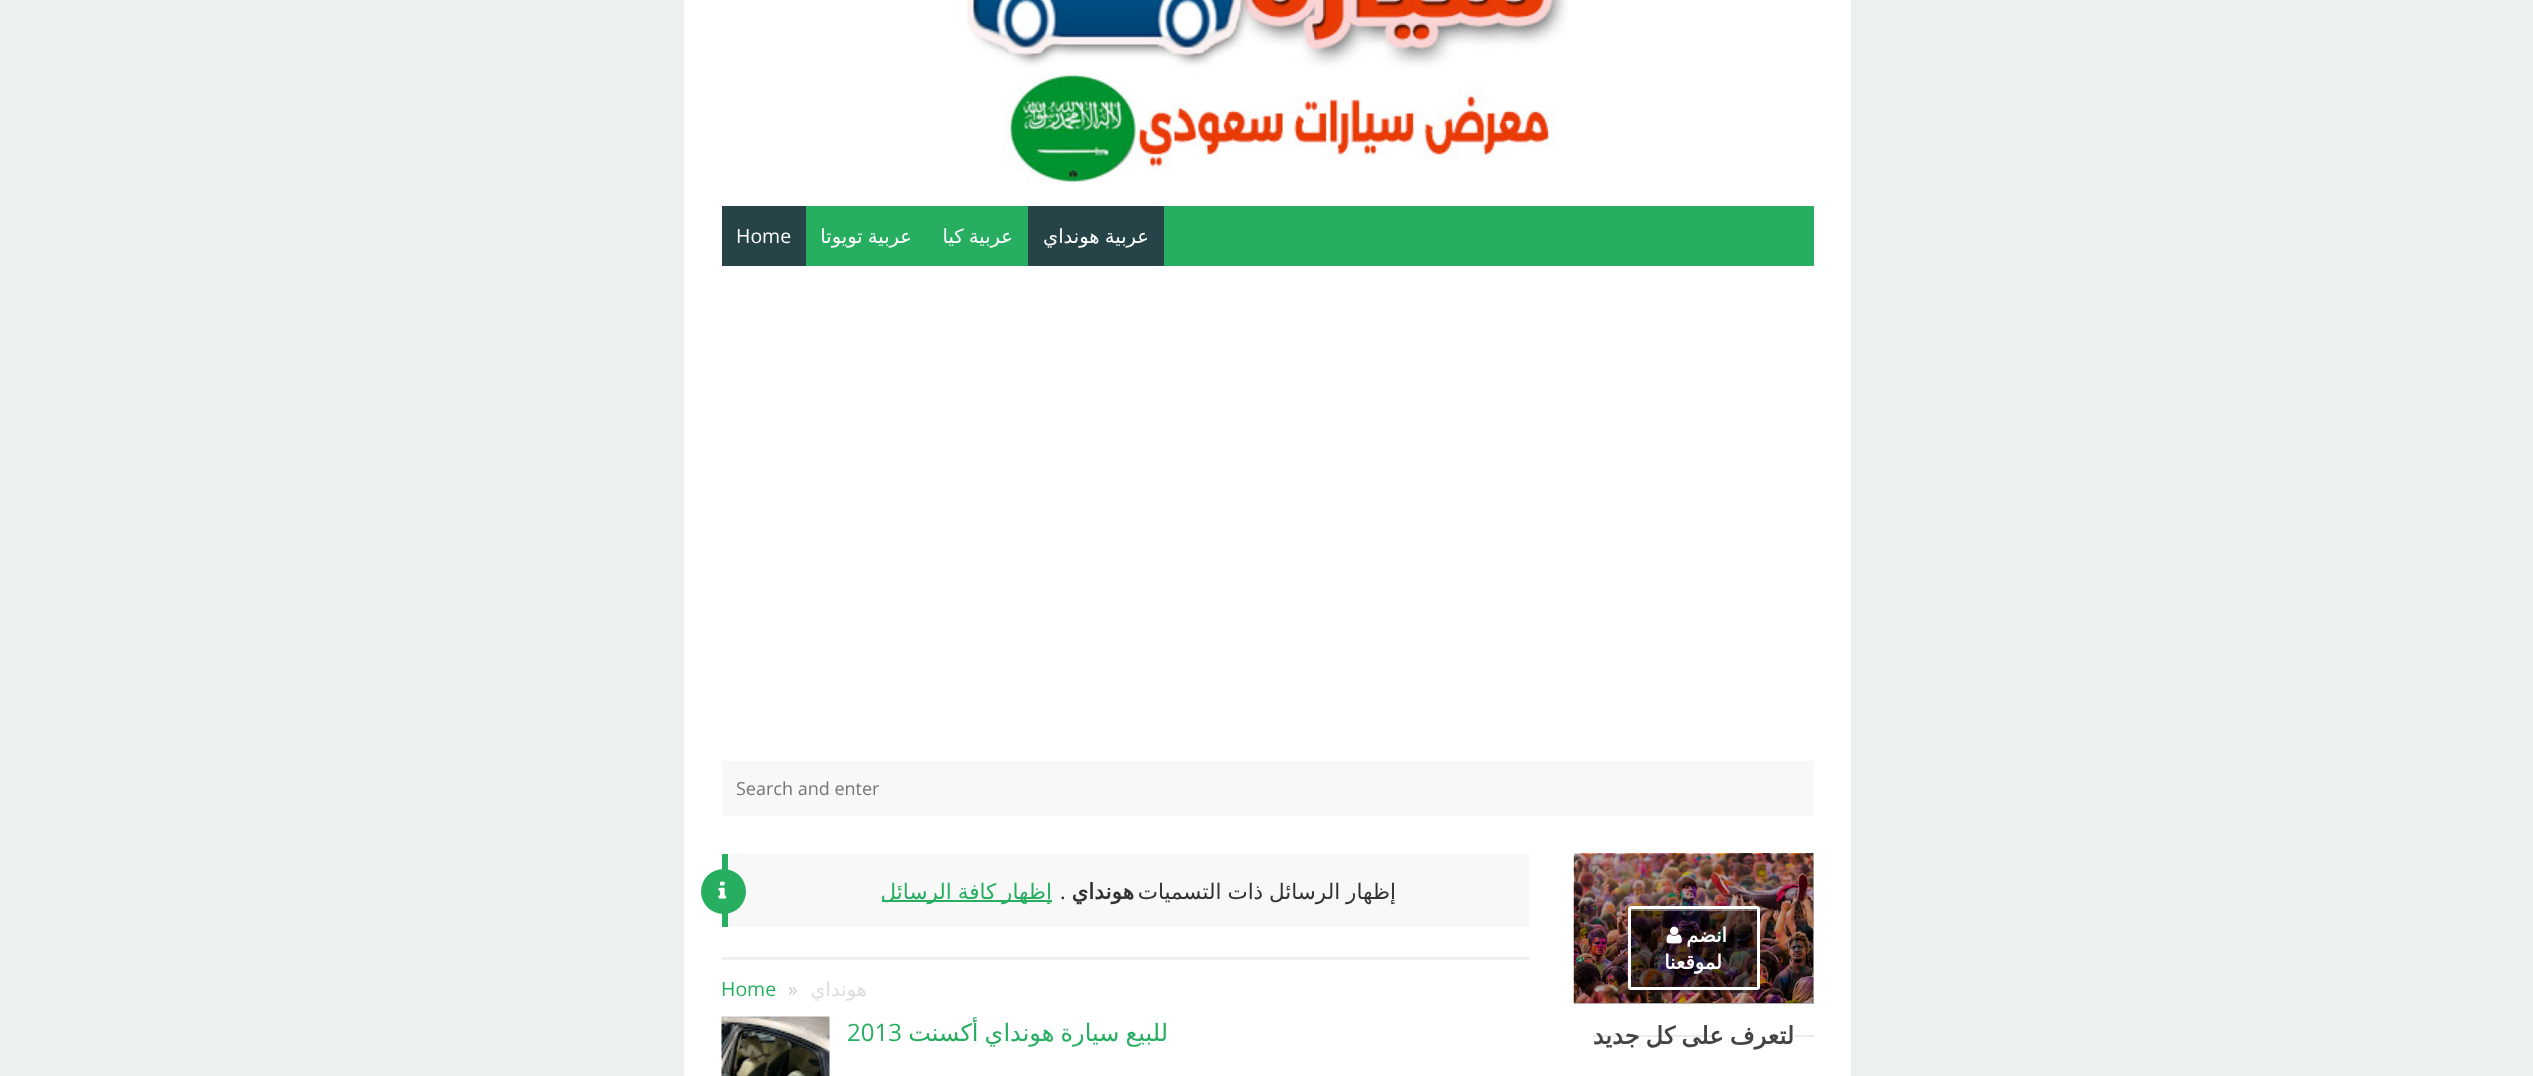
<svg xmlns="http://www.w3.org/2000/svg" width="2533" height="1076">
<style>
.a{font:19.5px DejaVu Sans;direction:rtl;fill:#fff}
.b{font:19.5px Open Sans;fill:#fff}
.c{font:18px Open Sans;fill:#757575}
.d{font:bold 19.5px DejaVu Sans;direction:rtl;fill:#fff}
.e{font:bold 24px DejaVu Sans;direction:rtl;fill:#444}
.f{font:21.5px DejaVu Sans;direction:rtl;fill:#333}
.g{font:bold 21.5px DejaVu Sans;direction:rtl;fill:#333}
.h{font:21.5px Open Sans;fill:#333}
.i{font:21.5px DejaVu Sans;direction:rtl;fill:#27ae60}
.j{font:19.5px DejaVu Sans;direction:rtl;fill:#ddd}
.k{font:19.5px Open Sans;fill:#ccc}
.l{font:19.5px Open Sans;fill:#27ae60}
.m{font:24px DejaVu Sans;direction:rtl;fill:#27ae60}
.n{font:24px Open Sans;fill:#27ae60}
</style>
<defs>
<clipPath id="clip1"><path d="M737 776h1062v25H737z"/></clipPath>
</defs>
<rect width="100%" height="100%" fill="#ecf0f1"/>
<path fill="#fff" d="M684 0h1167v1076H684z"/>
<path fill="#b3b3b3" d="M1574 854h240v150H1574z"/>
<image href="1.png" x="967" y="0" width="601" height="183"/>
<path fill="#27ae60" d="M806 206h1008v60H806z"/>
<path fill="#264348" d="M1028 206h136v60H1028z"/>
<path fill="#264348" d="M722 206h84v60H722z"/>
<path fill="#f8f8f8" d="M722 761h1092v55H722z"/>
<image href="2.png" x="1573" y="853" width="241" height="150"/>
<path fill="#13121261" d="M1629 990c0 1 0 3 1 3h127c1-1 1-2 1-3h-2h-126z"/>
<path fill="#00000021" d="M1629 990l1 2h106c1 0 22 5 22-2h-2h-126z"/>
<rect fill="#00000080" x="1628" y="906" width="132" height="84" rx="3"/>
<path fill="#ffffff57" d="M1631 909h126v2H1631z"/>
<rect fill="none" stroke="#fff" stroke-width="3" x="1629.5" y="907.5" width="129" height="81" rx="1.5"/>
<image href="3.png" x="1666" y="926" width="16" height="18"/>
<path fill="#ebebeb" d="M1794 1035h20v2H1794z"/>
<path fill="#00000014" d="M1593 1035h119v2H1593z"/>
<path fill="#f8f8f8" d="M728 854h801v73H728z"/>
<path fill="#27ae60" d="M722 854h6v73H722z"/>
<path fill="#27ae60" d="M882 900h170v2H882z"/>
<circle fill="#27ae60" cx="723.5" cy="891.5" r="22.5"/>
<image href="4.png" x="718" y="881" width="9" height="18"/>
<path fill="#ecf0f1" d="M722 957h807v3H722z"/>
<image href="5.png" x="721" y="1016" width="109" height="60"/>
<text class="a" x="1149" y="243" word-spacing="-1">عربية هونداي</text>
<text class="a" x="1013" y="243" word-spacing="-1">عربية كيا</text>
<text class="a" x="912" y="243" word-spacing="-1">عربية تويوتا</text>
<text class="b" x="736" y="243">Home</text>
<g clip-path="url(#clip1)">
<text class="c" x="736" y="795">Search and enter</text>
</g>
<text class="d" x="1727" y="942">انضم</text>
<text class="d" x="1722" y="969">لموقعنا</text>
<text class="e" x="1794" y="1044" word-spacing="-1.5">لتعرف على كل جديد</text>
<text class="f" x="1396" y="899" word-spacing="-1">إظهار الرسائل ذات التسميات</text>
<text class="g" x="1134" y="899">هونداي</text>
<text class="h" x="1060" y="899">.</text>
<text class="i" x="1052" y="899" word-spacing="-1">إظهار كافة الرسائل</text>
<text class="j" x="867" y="996">هونداي</text>
<text class="k" x="788" y="996">»</text>
<text class="l" x="721" y="996">Home</text>
<text class="m" x="1168" y="1041" word-spacing="-1.5">للبيع سيارة هونداي أكسنت</text>
<text class="n" x="847" y="1041">2013</text>
</svg>
